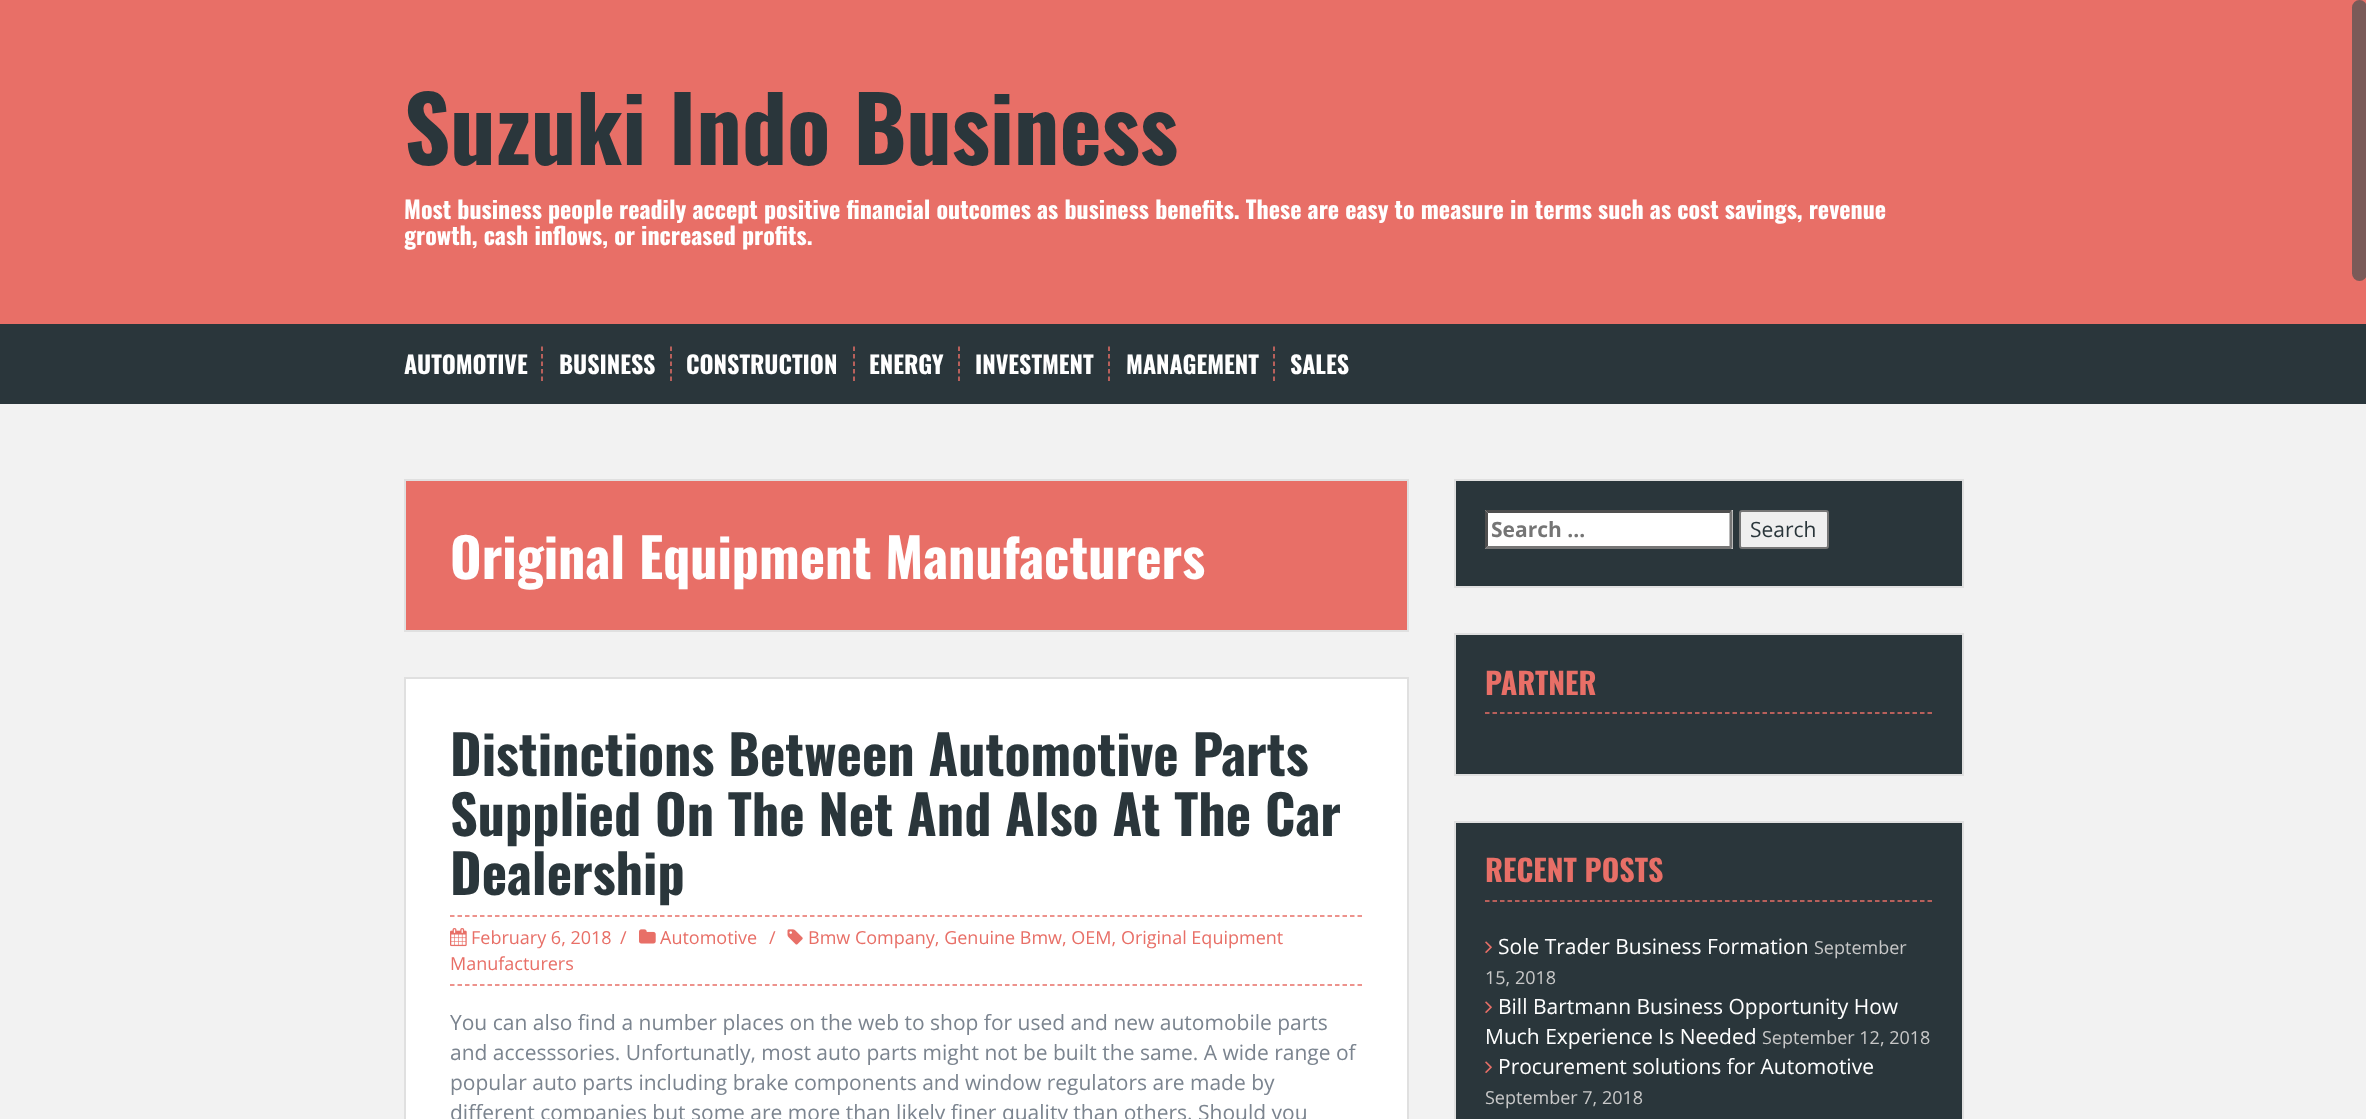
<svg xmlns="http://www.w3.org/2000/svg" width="2366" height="1119">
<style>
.a{font:bold 90px Oswald;fill:#2a363b}
.b{font:bold 24px Oswald;fill:#fff}
.c{font:bold 54px Oswald;fill:#fff}
.d{font:bold 54px Oswald;fill:#2a363b}
.e{font:18px Open Sans;fill:#e86f67}
.f{font:21px Open Sans;fill:#7b848f}
.g{font:bold 21px Open Sans;fill:#757575}
.h{font:21px Open Sans;fill:#2a363b}
.i{font:bold 30px Oswald;fill:#e86f67}
.j{font:21px Open Sans;fill:#fff}
.k{font:18px Open Sans;fill:#c8c8c8}
</style>
<rect width="100%" height="100%" fill="#f2f2f2"/>
<path fill="#e86f67" d="M0 0h2366v324H0z"/>
<path fill="#2a363b" d="M0 324h2366v80H0z"/>
<path fill="none" stroke="#e86f67" stroke-width="1.5" stroke-dasharray="4.5 3" d="M542 346.5v34.5"/>
<path fill="none" stroke="#e86f67" stroke-width="1.5" stroke-dasharray="4.5 3" d="M671 346.5v34.5"/>
<path fill="none" stroke="#e86f67" stroke-width="1.5" stroke-dasharray="4.5 3" d="M854 346.5v34.5"/>
<path fill="none" stroke="#e86f67" stroke-width="1.5" stroke-dasharray="4.5 3" d="M959 346.5v34.5"/>
<path fill="none" stroke="#e86f67" stroke-width="1.5" stroke-dasharray="4.5 3" d="M1109 346.5v34.5"/>
<path fill="none" stroke="#e86f67" stroke-width="1.5" stroke-dasharray="4.5 3" d="M1274 346.5v34.5"/>
<path fill="#e86f67" stroke="#e0e0e0" stroke-width="2" d="M405 480h1003v151H405z"/>
<path fill="#fff" stroke="#e0e0e0" stroke-width="2" d="M405 678h1003v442H405z"/>
<path fill="none" stroke="#e86f67" stroke-width="1.5" stroke-dasharray="4.5 3" d="M450 916h912"/>
<path fill="none" stroke="#e86f67" stroke-width="1.5" stroke-dasharray="4.5 3" d="M450 985h912"/>
<image href="1.png" x="787" y="929" width="16" height="16"/>
<image href="2.png" x="450" y="928" width="17" height="19"/>
<image href="3.png" x="639" y="929" width="17" height="15"/>
<path fill="#2a363b" stroke="#e0e0e0" stroke-width="2" d="M1455 480h508v107H1455z"/>
<path fill="#fff" d="M1485 510h248v39H1485z"/>
<path fill="#4f4f4f" d="M1485 510h247l-2 3h-242z"/>
<path fill="#767676" d="M1732.5 510v39l-3-3v-33z"/>
<path fill="#767676" d="M1732 549h-247l3-3h242z"/>
<path fill="#4f4f4f" d="M1485 549v-39l3 3v33z"/>
<rect fill="#efefef" stroke="#767676" stroke-width="2" x="1740" y="511" width="88" height="37" rx="2"/>
<path fill="#2a363b" stroke="#e0e0e0" stroke-width="2" d="M1455 634h508v141H1455z"/>
<path fill="none" stroke="#e86f67" stroke-width="1.5" stroke-dasharray="4.5 3" d="M1485 713h447"/>
<path fill="#2a363b" stroke="#e0e0e0" stroke-width="2" d="M1455 822h508v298H1455z"/>
<path fill="none" stroke="#e86f67" stroke-width="1.5" stroke-dasharray="4.5 3" d="M1485 901h447"/>
<image href="4.png" x="1485" y="941" width="7" height="12"/>
<image href="4.png" x="1485" y="1001" width="7" height="12"/>
<image href="4.png" x="1485" y="1061" width="7" height="12"/>
<rect fill="#7a5a58" x="2352" width="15" height="281" rx="7.5"/>
<text class="a" x="404" y="165">Suzuki Indo Business</text>
<text class="b" x="404" y="219">Most business people readily accept positive financial outcomes as business benefits. These are easy to measure in terms such as cost savings, revenue</text>
<text class="b" x="404" y="245">growth, cash inflows, or increased profits.</text>
<text class="b" x="404" y="374">AUTOMOTIVE</text>
<text class="b" x="559" y="374">BUSINESS</text>
<text class="b" x="686" y="374">CONSTRUCTION</text>
<text class="b" x="869" y="374">ENERGY</text>
<text class="b" x="975" y="374">INVESTMENT</text>
<text class="b" x="1126" y="374">MANAGEMENT</text>
<text class="b" x="1290" y="374">SALES</text>
<text class="c" x="450" y="579">Original Equipment Manufacturers</text>
<text class="d" x="450" y="776">Distinctions Between Automotive Parts</text>
<text class="d" x="450" y="836">Supplied On The Net And Also At The Car</text>
<text class="d" x="450" y="895">Dealership</text>
<text class="e" x="808" y="944">Bmw Company, Genuine Bmw, OEM, Original Equipment</text>
<text class="e" x="450" y="970">Manufacturers</text>
<text class="e" x="471" y="944">February 6, 2018</text>
<text class="e" x="620" y="944">/</text>
<text class="e" x="660" y="944">Automotive</text>
<text class="e" x="769" y="944">/</text>
<text class="f" x="450" y="1030">You can also find a number places on the web to shop for used and new automobile parts</text>
<text class="f" x="450" y="1060">and accesssories. Unfortunatly, most auto parts might not be built the same. A wide range of</text>
<text class="f" x="450" y="1090">popular auto parts including brake components and window regulators are made by</text>
<text class="f" x="450" y="1120">different companies but some are more than likely finer quality than others. Should you</text>
<text class="g" x="1491" y="537">Search …</text>
<text class="h" x="1750" y="537">Search</text>
<text class="i" x="1485" y="695">PARTNER</text>
<text class="i" x="1485" y="882">RECENT POSTS</text>
<text class="j" x="1498" y="954">Sole Trader Business Formation</text>
<text class="k" x="1814" y="954">September</text>
<text class="k" x="1485" y="984">15, 2018</text>
<text class="j" x="1498" y="1014">Bill Bartmann Business Opportunity How</text>
<text class="j" x="1485" y="1044">Much Experience Is Needed</text>
<text class="k" x="1762" y="1044">September 12, 2018</text>
<text class="j" x="1498" y="1074">Procurement solutions for Automotive</text>
<text class="k" x="1485" y="1104">September 7, 2018</text>
</svg>
